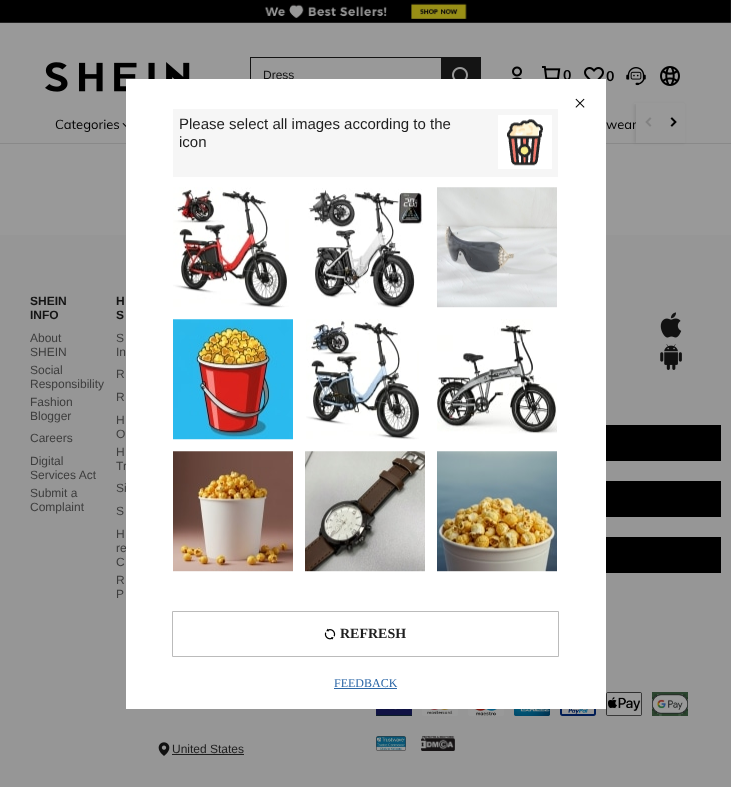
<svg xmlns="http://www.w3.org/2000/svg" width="731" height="787">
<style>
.a{font:12px Liberation Sans;fill:#141414}
.b{font:bold 14px Muli;fill:#000}
.c{font:13px Muli;fill:#000}
.d{font:bold 12px Liberation Sans;fill:#141414}
.e{font:12px Liberation Sans;fill:#3d3d3d}
.f{font:12px Liberation Sans;fill:#1e1e1e}
.g{font:15px Liberation Sans;fill:#1e1e1e}
.h{font:bold 14px Liberation Serif;fill:#1e1e1e}
.i{font:12px Liberation Serif;fill:#2d68a8}
</style>
<rect width="100%" height="100%" fill="#999"/>
<image href="1.png" x="0" y="0" width="731" height="23"/>
<path fill="#898989" d="M0 143h731v1H0z"/>
<path fill="#00000014" filter="blur(1.5px)" d="M634 104h50v39H634z"/>
<path fill="#999" d="M634 103h50v1H634z"/>
<image href="2.png" x="45" y="62" width="145" height="30"/>
<path fill="#141414" d="M250 57h191v1H250z"/>
<path fill="#141414" d="M250 57h1v22H250z"/>
<path fill="#141414" d="M441 57h40v22H441z"/>
<image href="3.png" x="452" y="67" width="16" height="12"/>
<image href="4.png" x="512" y="66" width="10" height="13"/>
<image href="5.png" x="542" y="66" width="19" height="13"/>
<image href="6.png" x="584" y="67" width="20" height="12"/>
<image href="7.png" x="626" y="67" width="20" height="19"/>
<image href="8.png" x="660" y="66" width="20" height="20"/>
<image href="9.png" x="122" y="123" width="4" height="4"/>
<path fill="#969696" d="M0 235h731v552H0z"/>
<image href="12.png" x="660" y="312" width="22" height="26"/>
<image href="13.png" x="660" y="344" width="22" height="26"/>
<path fill="#000" d="M606 425h115v36H606z"/>
<path fill="#000" d="M606 481h115v36H606z"/>
<path fill="#000" d="M606 537h115v36H606z"/>
<image href="14.png" x="376" y="709" width="36" height="7"/>
<image href="15.png" x="422" y="709" width="36" height="7"/>
<image href="16.png" x="468" y="709" width="36" height="7"/>
<image href="17.png" x="514" y="709" width="36" height="7"/>
<image href="18.png" x="560" y="709" width="36" height="7"/>
<image href="19.png" x="606" y="692" width="36" height="24"/>
<image href="20.png" x="652" y="692" width="36" height="24"/>
<image href="21.png" x="158" y="742" width="12" height="14"/>
<path fill="#1e1e1e" d="M172 754h72v1H172z"/>
<image href="22.png" x="376" y="736" width="30" height="15"/>
<image href="23.png" x="421" y="736" width="34" height="15"/>
<path fill="#0000004d" filter="blur(0.5px)" d="M126 79h480v629H126z"/>
<text class="a" x="263" y="79">Dress</text>
<text class="b" x="563" y="80">0</text>
<text class="b" x="606" y="81">0</text>
<text class="c" x="55" y="129">Categories</text>
<text class="c" x="606" y="129">wear</text>
<path fill="#999" d="M636 104h49v39H636z"/>
<image href="10.png" x="645" y="117" width="7" height="10"/>
<image href="11.png" x="670" y="117" width="7" height="10"/>
<text class="d" x="30" y="305">SHEIN</text>
<text class="d" x="30" y="319">INFO</text>
<text class="e" x="30" y="342">About</text>
<text class="e" x="30" y="356">SHEIN</text>
<text class="e" x="30" y="374">Social</text>
<text class="e" x="30" y="388">Responsibility</text>
<text class="e" x="30" y="406">Fashion</text>
<text class="e" x="30" y="420">Blogger</text>
<text class="e" x="30" y="442">Careers</text>
<text class="e" x="30" y="465">Digital</text>
<text class="e" x="30" y="479">Services Act</text>
<text class="e" x="30" y="497">Submit a</text>
<text class="e" x="30" y="511">Complaint</text>
<text class="d" x="116" y="305">H</text>
<text class="d" x="116" y="319">S</text>
<text class="e" x="116" y="342">S</text>
<text class="e" x="116" y="356">In</text>
<text class="e" x="116" y="378">R</text>
<text class="e" x="116" y="401">R</text>
<text class="e" x="116" y="424">H</text>
<text class="e" x="116" y="438">O</text>
<text class="e" x="116" y="456">H</text>
<text class="e" x="116" y="470">Tr</text>
<text class="e" x="116" y="492">Si</text>
<text class="e" x="116" y="515">S</text>
<text class="e" x="116" y="538">H</text>
<text class="e" x="116" y="552">re</text>
<text class="e" x="116" y="566">C</text>
<text class="e" x="116" y="584">R</text>
<text class="e" x="116" y="598">P</text>
<text class="f" x="172" y="753">United States</text>
<path fill="#fff" d="M126 79h480v630H126z"/>
<image href="24.png" x="575" y="98" width="10" height="10"/>
<path fill="#f6f6f6" d="M173 109h385v68H173z"/>
<text class="g" x="179" y="129">Please select all images according to the</text>
<text class="g" x="179" y="147">icon</text>
<path fill="#fff" d="M498 115h54v54H498z"/>
<image href="25.png" x="507" y="119" width="36" height="47"/>
<image href="26.png" x="173" y="187" width="116" height="121"/>
<image href="27.png" x="308" y="188" width="115" height="120"/>
<image href="28.png" x="437" y="187" width="120" height="121"/>
<image href="29.png" x="173" y="319" width="120" height="121"/>
<image href="30.png" x="306" y="319" width="113" height="121"/>
<image href="31.png" x="437" y="319" width="120" height="115"/>
<image href="32.png" x="173" y="451" width="120" height="121"/>
<image href="33.png" x="305" y="451" width="120" height="121"/>
<image href="34.png" x="437" y="451" width="120" height="121"/>
<path fill="none" stroke="#bbb" d="M172.5 611.5h386v45H172.5z"/>
<image href="35.png" x="324" y="628" width="12" height="12"/>
<text class="h" x="340" y="638">REFRESH</text>
<text class="i" x="334" y="687">FEEDBACK</text>
<path fill="#2d68a8" d="M334 688h63v1H334z"/>
</svg>
